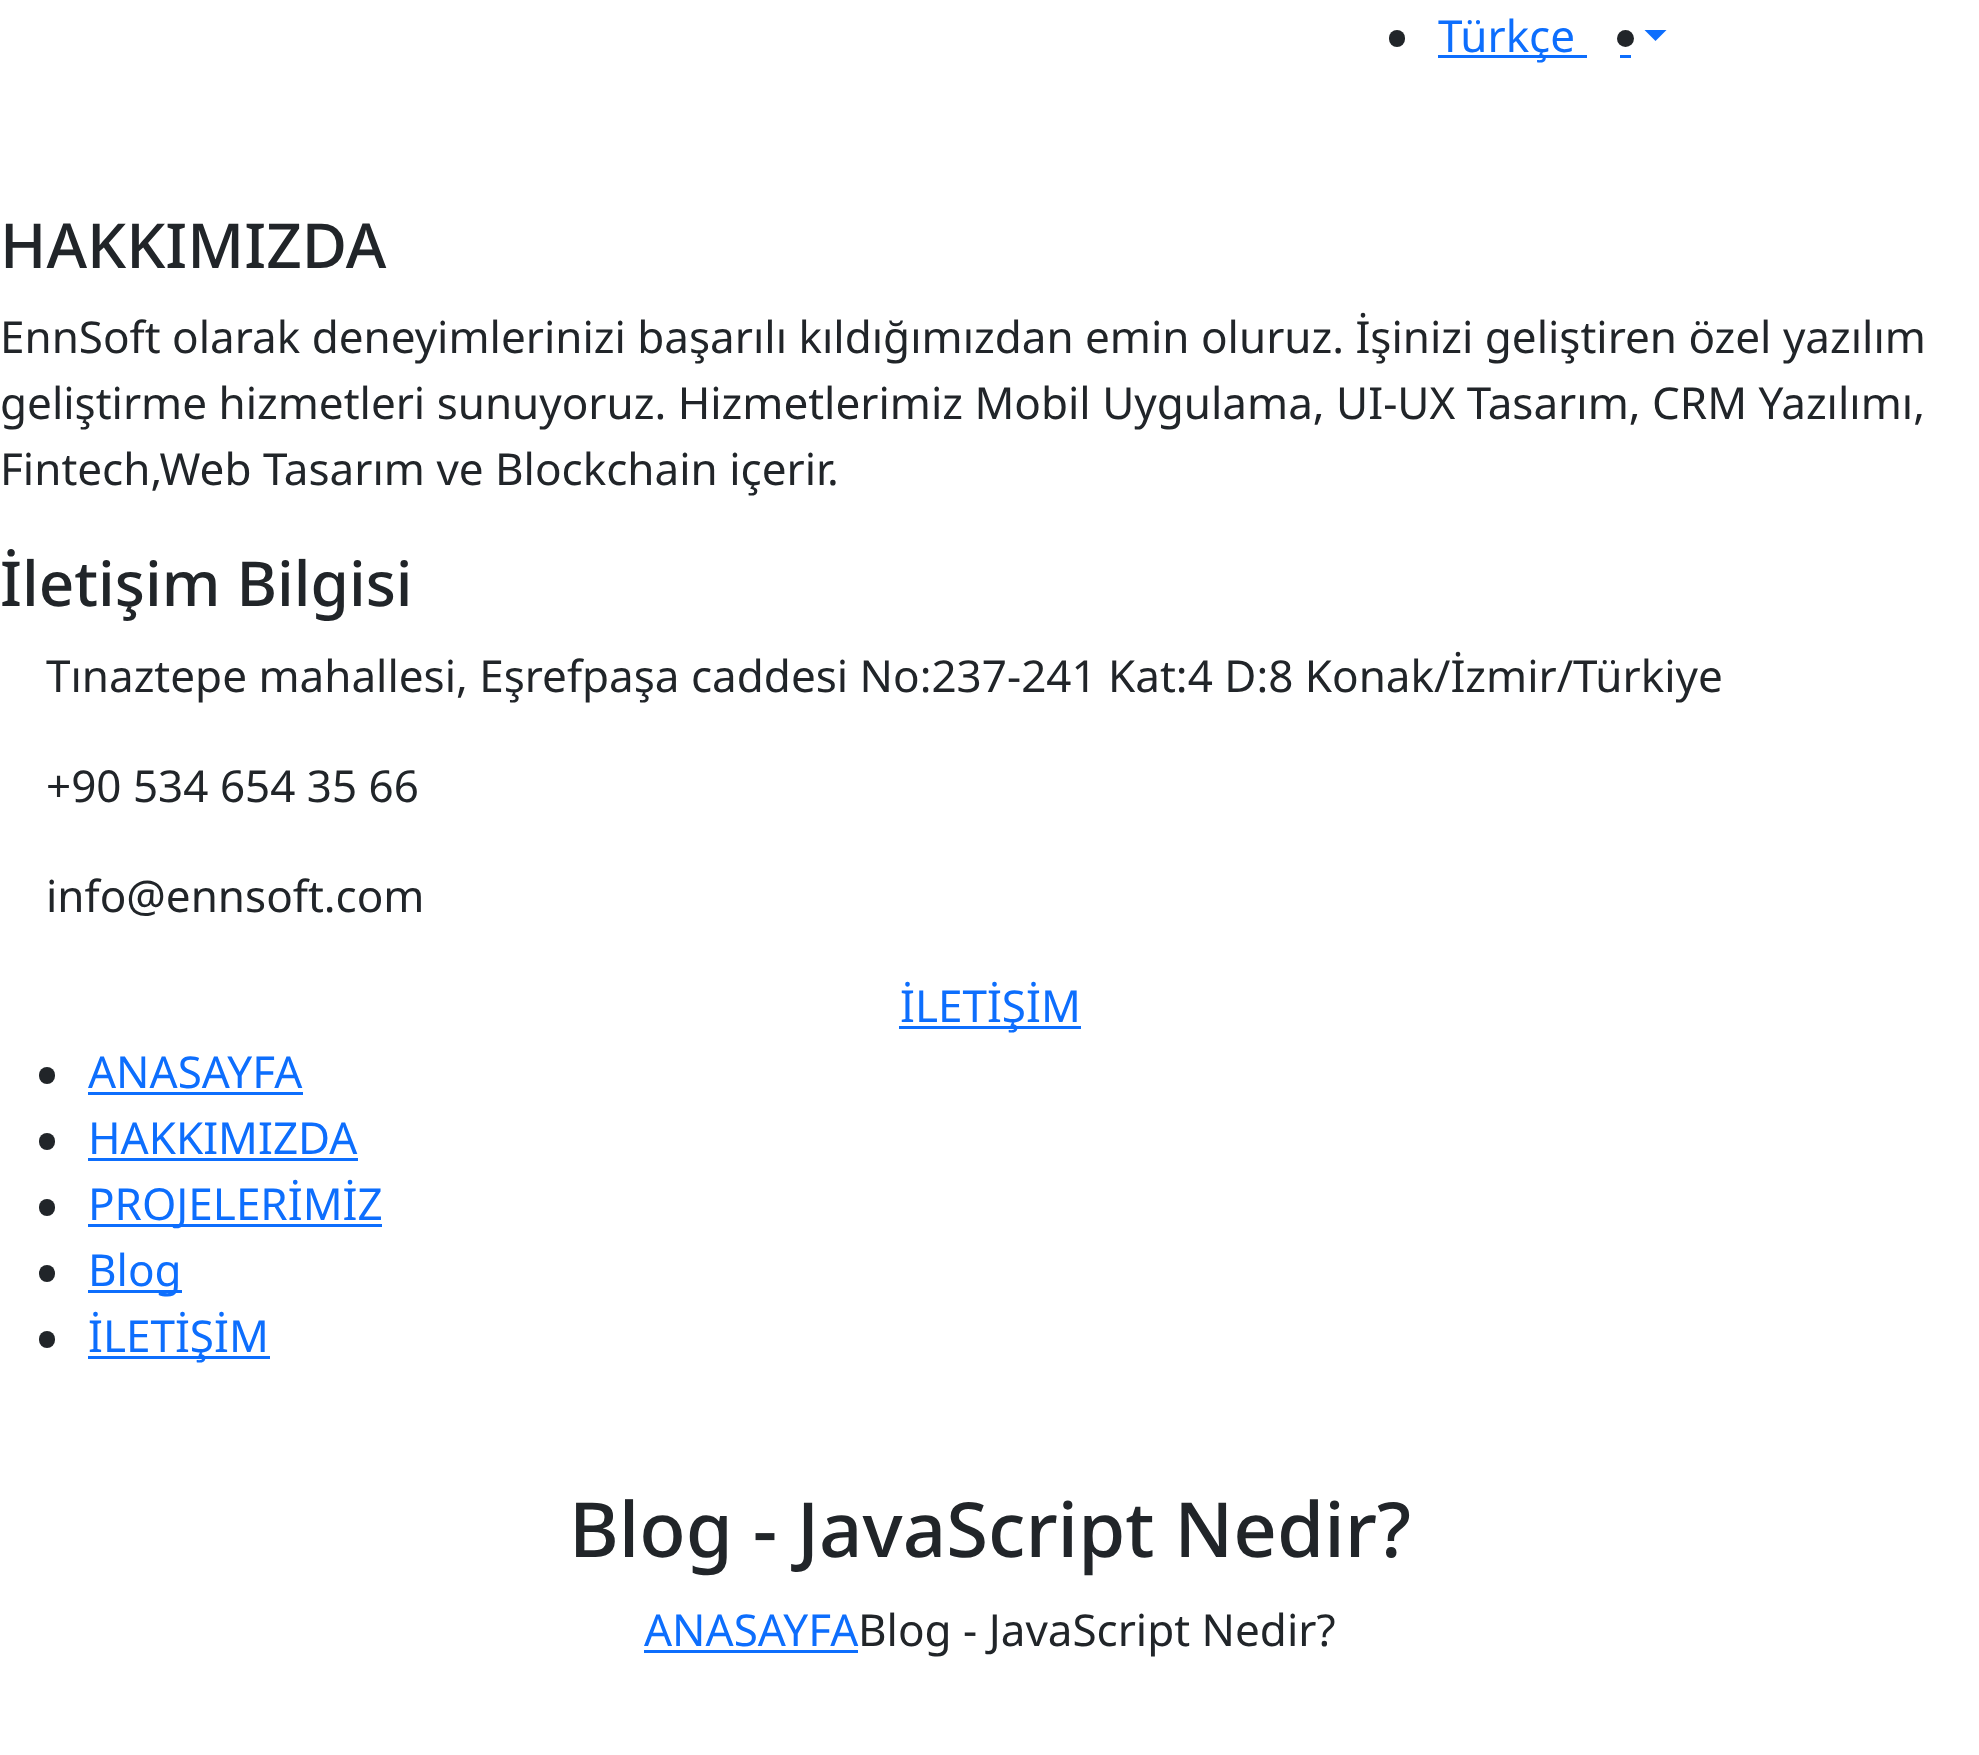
<svg xmlns="http://www.w3.org/2000/svg" width="1979" height="1755">
<style>
.a{font:44px Noto Sans;fill:#0d6efd}
.b{font:500 62px Noto Sans;fill:#212529}
.c{font:44px Noto Sans;fill:#212529}
.d{font:500 76.1px Noto Sans;fill:#212529}
</style>
<rect width="100%" height="100%" fill="#fff"/>
<rect fill="#212529" x="1389" y="30" width="16" height="17" rx="8"/>
<path fill="#0d6efd" d="M1438 55h149v3H1438z"/>
<path fill="#0d6efd" d="M1644.5 30h22l-11 11z"/>
<path fill="#0d6efd" d="M1620 55h11v3H1620z"/>
<circle fill="#212529" cx="1625.5" cy="38.5" r="8.5"/>
<path fill="#0d6efd" d="M899 1026h182v3H899z"/>
<rect fill="#212529" x="39" y="1067" width="16" height="17" rx="8"/>
<path fill="#0d6efd" d="M88 1092h215v3H88z"/>
<rect fill="#212529" x="39" y="1133" width="16" height="17" rx="8"/>
<path fill="#0d6efd" d="M88 1158h270v3H88z"/>
<rect fill="#212529" x="39" y="1199" width="16" height="17" rx="8"/>
<path fill="#0d6efd" d="M88 1224h294v3H88z"/>
<rect fill="#212529" x="39" y="1265" width="16" height="17" rx="8"/>
<path fill="#0d6efd" d="M88 1290h94v3H88z"/>
<rect fill="#212529" x="39" y="1331" width="16" height="17" rx="8"/>
<path fill="#0d6efd" d="M88 1356h182v3H88z"/>
<path fill="#0d6efd" d="M644 1650h214v3H644z"/>
<text class="a" x="1438" y="52">Türkçe</text>
<text class="b" x="0" y="268">HAKKIMIZDA</text>
<text class="c" x="0" y="353">EnnSoft olarak deneyimlerinizi başarılı kıldığımızdan emin oluruz. İşinizi geliştiren özel yazılım</text>
<text class="c" x="0" y="419">geliştirme hizmetleri sunuyoruz. Hizmetlerimiz Mobil Uygulama, UI-UX Tasarım, CRM Yazılımı,</text>
<text class="c" x="0" y="485">Fintech,Web Tasarım ve Blockchain içerir.</text>
<text class="b" x="0" y="606">İletişim Bilgisi</text>
<text class="c" x="46" y="692">Tınaztepe mahallesi, Eşrefpaşa caddesi No:237-241 Kat:4 D:8 Konak/İzmir/Türkiye</text>
<text class="c" x="46" y="802">+90 534 654 35 66</text>
<text class="c" x="46" y="912">info@ennsoft.com</text>
<text class="a" x="900" y="1022">İLETİŞİM</text>
<text class="a" x="88" y="1088">ANASAYFA</text>
<text class="a" x="88" y="1154">HAKKIMIZDA</text>
<text class="a" x="88" y="1220">PROJELERİMİZ</text>
<text class="a" x="88" y="1286">Blog</text>
<text class="a" x="88" y="1352">İLETİŞİM</text>
<text class="d" x="569" y="1557">Blog - JavaScript Nedir?</text>
<text class="a" x="644" y="1646">ANASAYFA</text>
<text class="c" x="858" y="1646">Blog - JavaScript Nedir?</text>
</svg>
